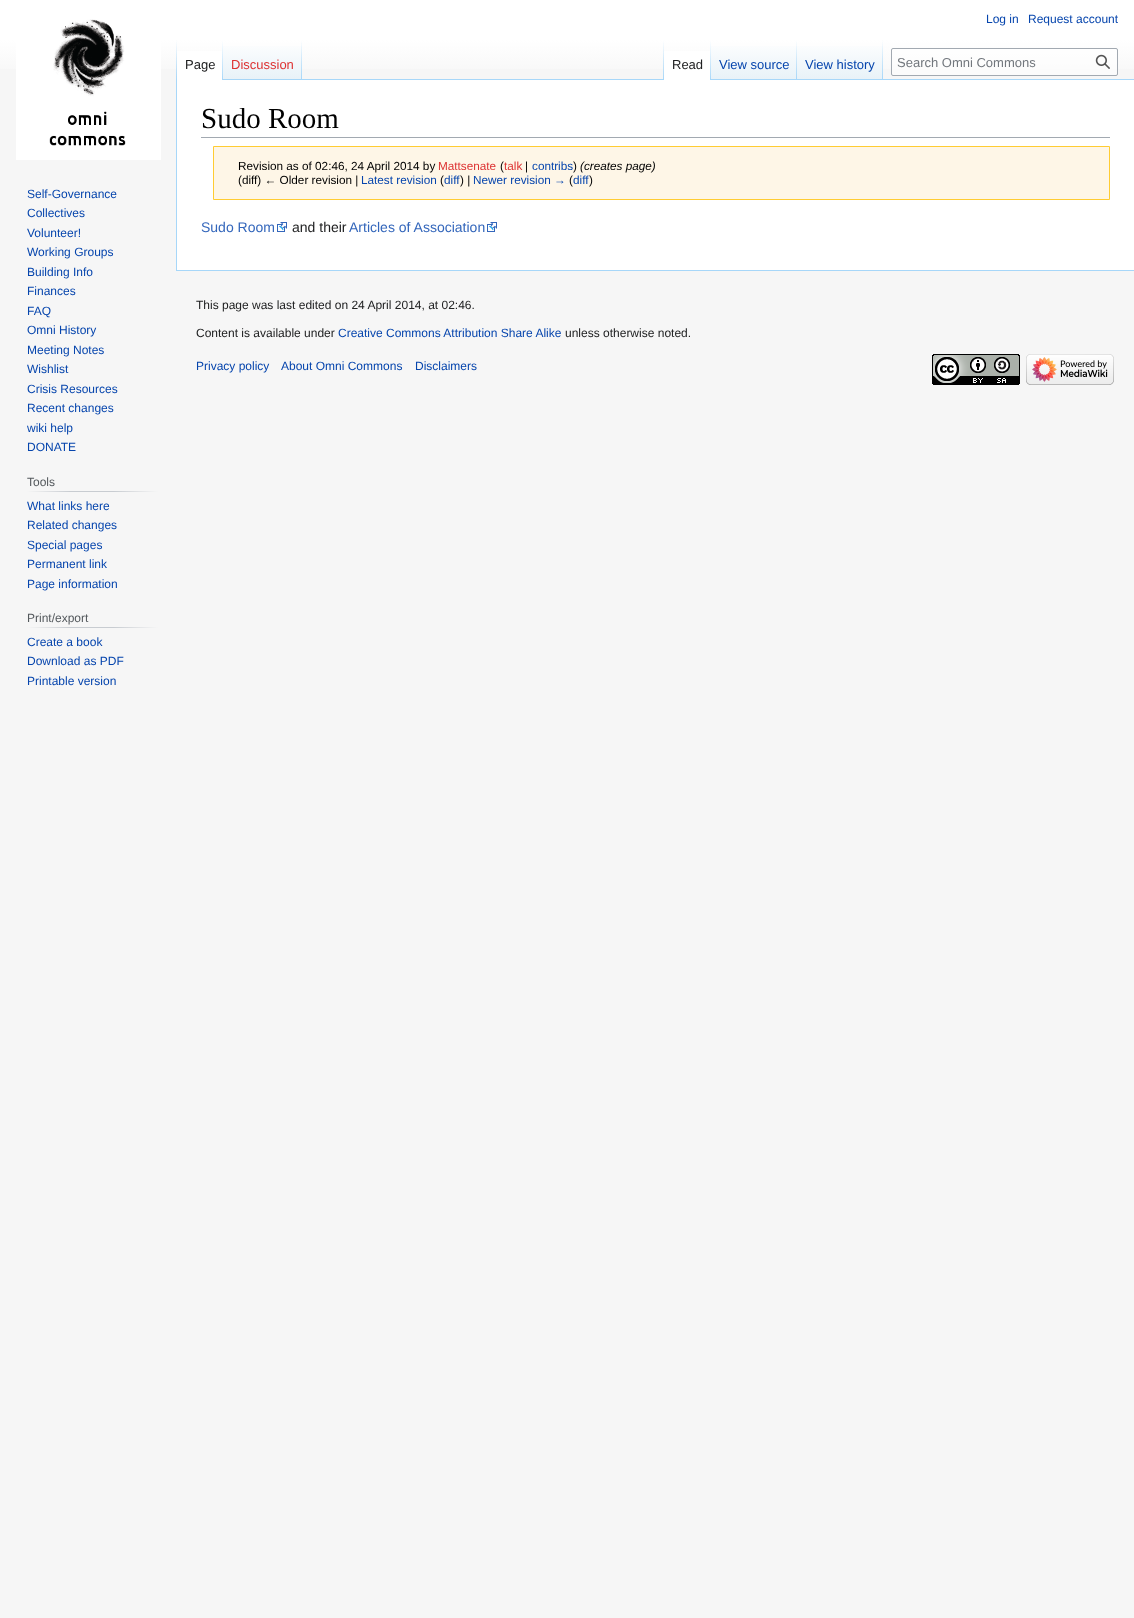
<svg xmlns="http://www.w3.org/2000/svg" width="1134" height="1618">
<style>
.a{font:12px Liberation Sans;fill:#0645ad}
.b{font:13px Liberation Sans;fill:#202122}
.c{font:13px Liberation Sans;fill:#d33}
.d{font:13px Liberation Sans;fill:#0645ad}
.e{font:13px Liberation Sans;fill:#72777d}
.f{font:12px Liberation Sans;fill:#54595d}
.g{font:29px Liberation Serif;fill:#000}
.h{font:11.75px Liberation Sans;fill:#000}
.i{font:11.75px Liberation Sans;fill:#d33}
.j{font:11.75px Liberation Sans;fill:#0645ad}
.k{font:italic 11.75px Liberation Sans;fill:#000}
.l{font:14px Liberation Sans;fill:#36b}
.m{font:14px Liberation Sans;fill:#202122}
.n{font:12px Liberation Sans;fill:#202122}
</style>
<defs>
<linearGradient id="g1" gradientUnits="userSpaceOnUse" x1="567" y1="0" x2="567" y2="80"><stop offset="0.5" stop-color="#fff"/><stop offset="1" stop-color="#f6f6f6"/></linearGradient>
<linearGradient id="g2" gradientUnits="userSpaceOnUse" x1="177" y1="40" x2="177" y2="80"><stop offset="0" stop-color="#a7d7f9" stop-opacity="0"/><stop offset="1" stop-color="#a7d7f9"/></linearGradient>
<linearGradient id="g3" gradientUnits="userSpaceOnUse" x1="223" y1="40" x2="223" y2="80"><stop offset="0" stop-color="#fff"/><stop offset="1" stop-color="#a7d7f9"/></linearGradient>
<linearGradient id="g4" gradientUnits="userSpaceOnUse" x1="263" y1="80" x2="263" y2="40"><stop offset="0" stop-color="#77c1f6"/><stop offset="0.03" stop-color="#e8f2f8"/><stop offset="1" stop-color="#fff"/></linearGradient>
<linearGradient id="g5" gradientUnits="userSpaceOnUse" x1="302" y1="40" x2="302" y2="80"><stop offset="0" stop-color="#a7d7f9" stop-opacity="0"/><stop offset="1" stop-color="#a7d7f9"/></linearGradient>
<linearGradient id="g6" gradientUnits="userSpaceOnUse" x1="664" y1="40" x2="664" y2="80"><stop offset="0" stop-color="#a7d7f9" stop-opacity="0"/><stop offset="1" stop-color="#a7d7f9"/></linearGradient>
<linearGradient id="g7" gradientUnits="userSpaceOnUse" x1="711" y1="40" x2="711" y2="80"><stop offset="0" stop-color="#fff"/><stop offset="1" stop-color="#a7d7f9"/></linearGradient>
<linearGradient id="g8" gradientUnits="userSpaceOnUse" x1="754" y1="80" x2="754" y2="40"><stop offset="0" stop-color="#77c1f6"/><stop offset="0.03" stop-color="#e8f2f8"/><stop offset="1" stop-color="#fff"/></linearGradient>
<linearGradient id="g9" gradientUnits="userSpaceOnUse" x1="797" y1="40" x2="797" y2="80"><stop offset="0" stop-color="#a7d7f9" stop-opacity="0"/><stop offset="1" stop-color="#a7d7f9"/></linearGradient>
<linearGradient id="g10" gradientUnits="userSpaceOnUse" x1="840" y1="80" x2="840" y2="40"><stop offset="0" stop-color="#77c1f6"/><stop offset="0.03" stop-color="#e8f2f8"/><stop offset="1" stop-color="#fff"/></linearGradient>
<linearGradient id="g11" gradientUnits="userSpaceOnUse" x1="883" y1="40" x2="883" y2="80"><stop offset="0" stop-color="#a7d7f9" stop-opacity="0"/><stop offset="1" stop-color="#a7d7f9"/></linearGradient>
<linearGradient id="g12" gradientUnits="userSpaceOnUse" x1="27" y1="492" x2="158" y2="492"><stop offset="0" stop-color="#f6f6f6"/><stop offset="0.33" stop-color="#c8ccd1"/><stop offset="0.66" stop-color="#c8ccd1"/><stop offset="1" stop-color="#f6f6f6"/></linearGradient>
<linearGradient id="g13" gradientUnits="userSpaceOnUse" x1="27" y1="628" x2="158" y2="628"><stop offset="0" stop-color="#f6f6f6"/><stop offset="0.33" stop-color="#c8ccd1"/><stop offset="0.66" stop-color="#c8ccd1"/><stop offset="1" stop-color="#f6f6f6"/></linearGradient>
</defs>
<rect width="100%" height="100%" fill="#f6f6f6"/>
<path fill="url(#g1)" d="M0 0h1134v69H0z"/>
<path fill="#a7d7f9" d="M176 270h958v1H176z"/>
<path fill="#a7d7f9" d="M176 79h1v192H176z"/>
<path fill="url(#g2)" d="M176 40h1v40H176z"/>
<path fill="#fff" d="M177 51h45v29H177z"/>
<path fill="url(#g3)" d="M222 40h1v40H222z"/>
<path fill="url(#g4)" d="M223 46h79v34H223z"/>
<path fill="url(#g5)" d="M301 40h1v40H301z"/>
<path fill="#a7d7f9" d="M302 79h832v1H302z"/>
<path fill="url(#g6)" d="M663 40h1v40H663z"/>
<path fill="#fff" d="M664 51h46v29H664z"/>
<path fill="url(#g7)" d="M710 40h1v40H710z"/>
<path fill="url(#g8)" d="M711 46h86v33H711z"/>
<path fill="url(#g9)" d="M796 40h1v40H796z"/>
<path fill="url(#g10)" d="M797 46h86v33H797z"/>
<path fill="url(#g11)" d="M882 40h1v40H882z"/>
<rect fill="#ffffff80" stroke="#a2a9b1" x="891.5" y="48.5" width="226" height="27" rx="1.5"/>
<image href="1.png" x="1095" y="54" width="15" height="15"/>
<image href="2.png" x="16" y="19" width="145" height="141"/>
<path fill="url(#g12)" d="M27 491h131v1H27z"/>
<path fill="url(#g13)" d="M27 627h131v1H27z"/>
<path fill="#fff" d="M177 80h957v190H177z"/>
<path fill="#a2a9b1" d="M201 137h909v1H201z"/>
<path fill="#fef6e7" stroke="#fc3" d="M213.5 146.5h896v53H213.5z"/>
<image href="3.png" x="277" y="222" width="10" height="10"/>
<image href="3.png" x="487" y="222" width="10" height="10"/>
<image href="4.png" x="932" y="354" width="88" height="31"/>
<image href="5.png" x="1026" y="354" width="88" height="31"/>
<text class="a" x="986" y="23">Log in</text>
<text class="a" x="1028" y="23">Request account</text>
<text class="b" x="185" y="69">Page</text>
<text class="c" x="231" y="69">Discussion</text>
<text class="b" x="672" y="69">Read</text>
<text class="d" x="719" y="69">View source</text>
<text class="d" x="805" y="69">View history</text>
<text class="e" x="897" y="67">Search Omni Commons</text>
<text class="a" x="27" y="198">Self-Governance</text>
<text class="a" x="27" y="217">Collectives</text>
<text class="a" x="27" y="237">Volunteer!</text>
<text class="a" x="27" y="256">Working Groups</text>
<text class="a" x="27" y="276">Building Info</text>
<text class="a" x="27" y="295">Finances</text>
<text class="a" x="27" y="315">FAQ</text>
<text class="a" x="27" y="334">Omni History</text>
<text class="a" x="27" y="354">Meeting Notes</text>
<text class="a" x="27" y="373">Wishlist</text>
<text class="a" x="27" y="393">Crisis Resources</text>
<text class="a" x="27" y="412">Recent changes</text>
<text class="a" x="27" y="432">wiki help</text>
<text class="a" x="27" y="451">DONATE</text>
<text class="f" x="27" y="486">Tools</text>
<text class="a" x="27" y="510">What links here</text>
<text class="a" x="27" y="529">Related changes</text>
<text class="a" x="27" y="549">Special pages</text>
<text class="a" x="27" y="568">Permanent link</text>
<text class="a" x="27" y="588">Page information</text>
<text class="f" x="27" y="622">Print/export</text>
<text class="a" x="27" y="646">Create a book</text>
<text class="a" x="27" y="665">Download as PDF</text>
<text class="a" x="27" y="685">Printable version</text>
<text class="g" x="201" y="128">Sudo Room</text>
<text class="h" x="238" y="170">Revision as of 02:46, 24 April 2014 by</text>
<text class="i" x="438" y="170">Mattsenate</text>
<text class="h" x="500" y="170">(</text>
<text class="i" x="504" y="170">talk</text>
<text class="h" x="525" y="170">|</text>
<text class="j" x="532" y="170">contribs</text>
<text class="h" x="573" y="170">)</text>
<text class="k" x="580" y="170">(creates page)</text>
<text class="h" x="238" y="184">(diff) ← Older revision |</text>
<text class="j" x="361" y="184">Latest revision</text>
<text class="h" x="440" y="184">(</text>
<text class="j" x="444" y="184">diff</text>
<text class="h" x="460" y="184">) |</text>
<text class="j" x="473" y="184">Newer revision →</text>
<text class="h" x="569" y="184">(</text>
<text class="j" x="573" y="184">diff</text>
<text class="h" x="589" y="184">)</text>
<text class="l" x="201" y="232">Sudo Room</text>
<text class="m" x="292" y="232">and their</text>
<text class="l" x="349" y="232">Articles of Association</text>
<text class="n" x="196" y="309">This page was last edited on 24 April 2014, at 02:46.</text>
<text class="n" x="196" y="337">Content is available under</text>
<text class="a" x="338" y="337">Creative Commons Attribution Share Alike</text>
<text class="n" x="565" y="337">unless otherwise noted.</text>
<text class="a" x="196" y="370">Privacy policy</text>
<text class="a" x="281" y="370">About Omni Commons</text>
<text class="a" x="415" y="370">Disclaimers</text>
</svg>
